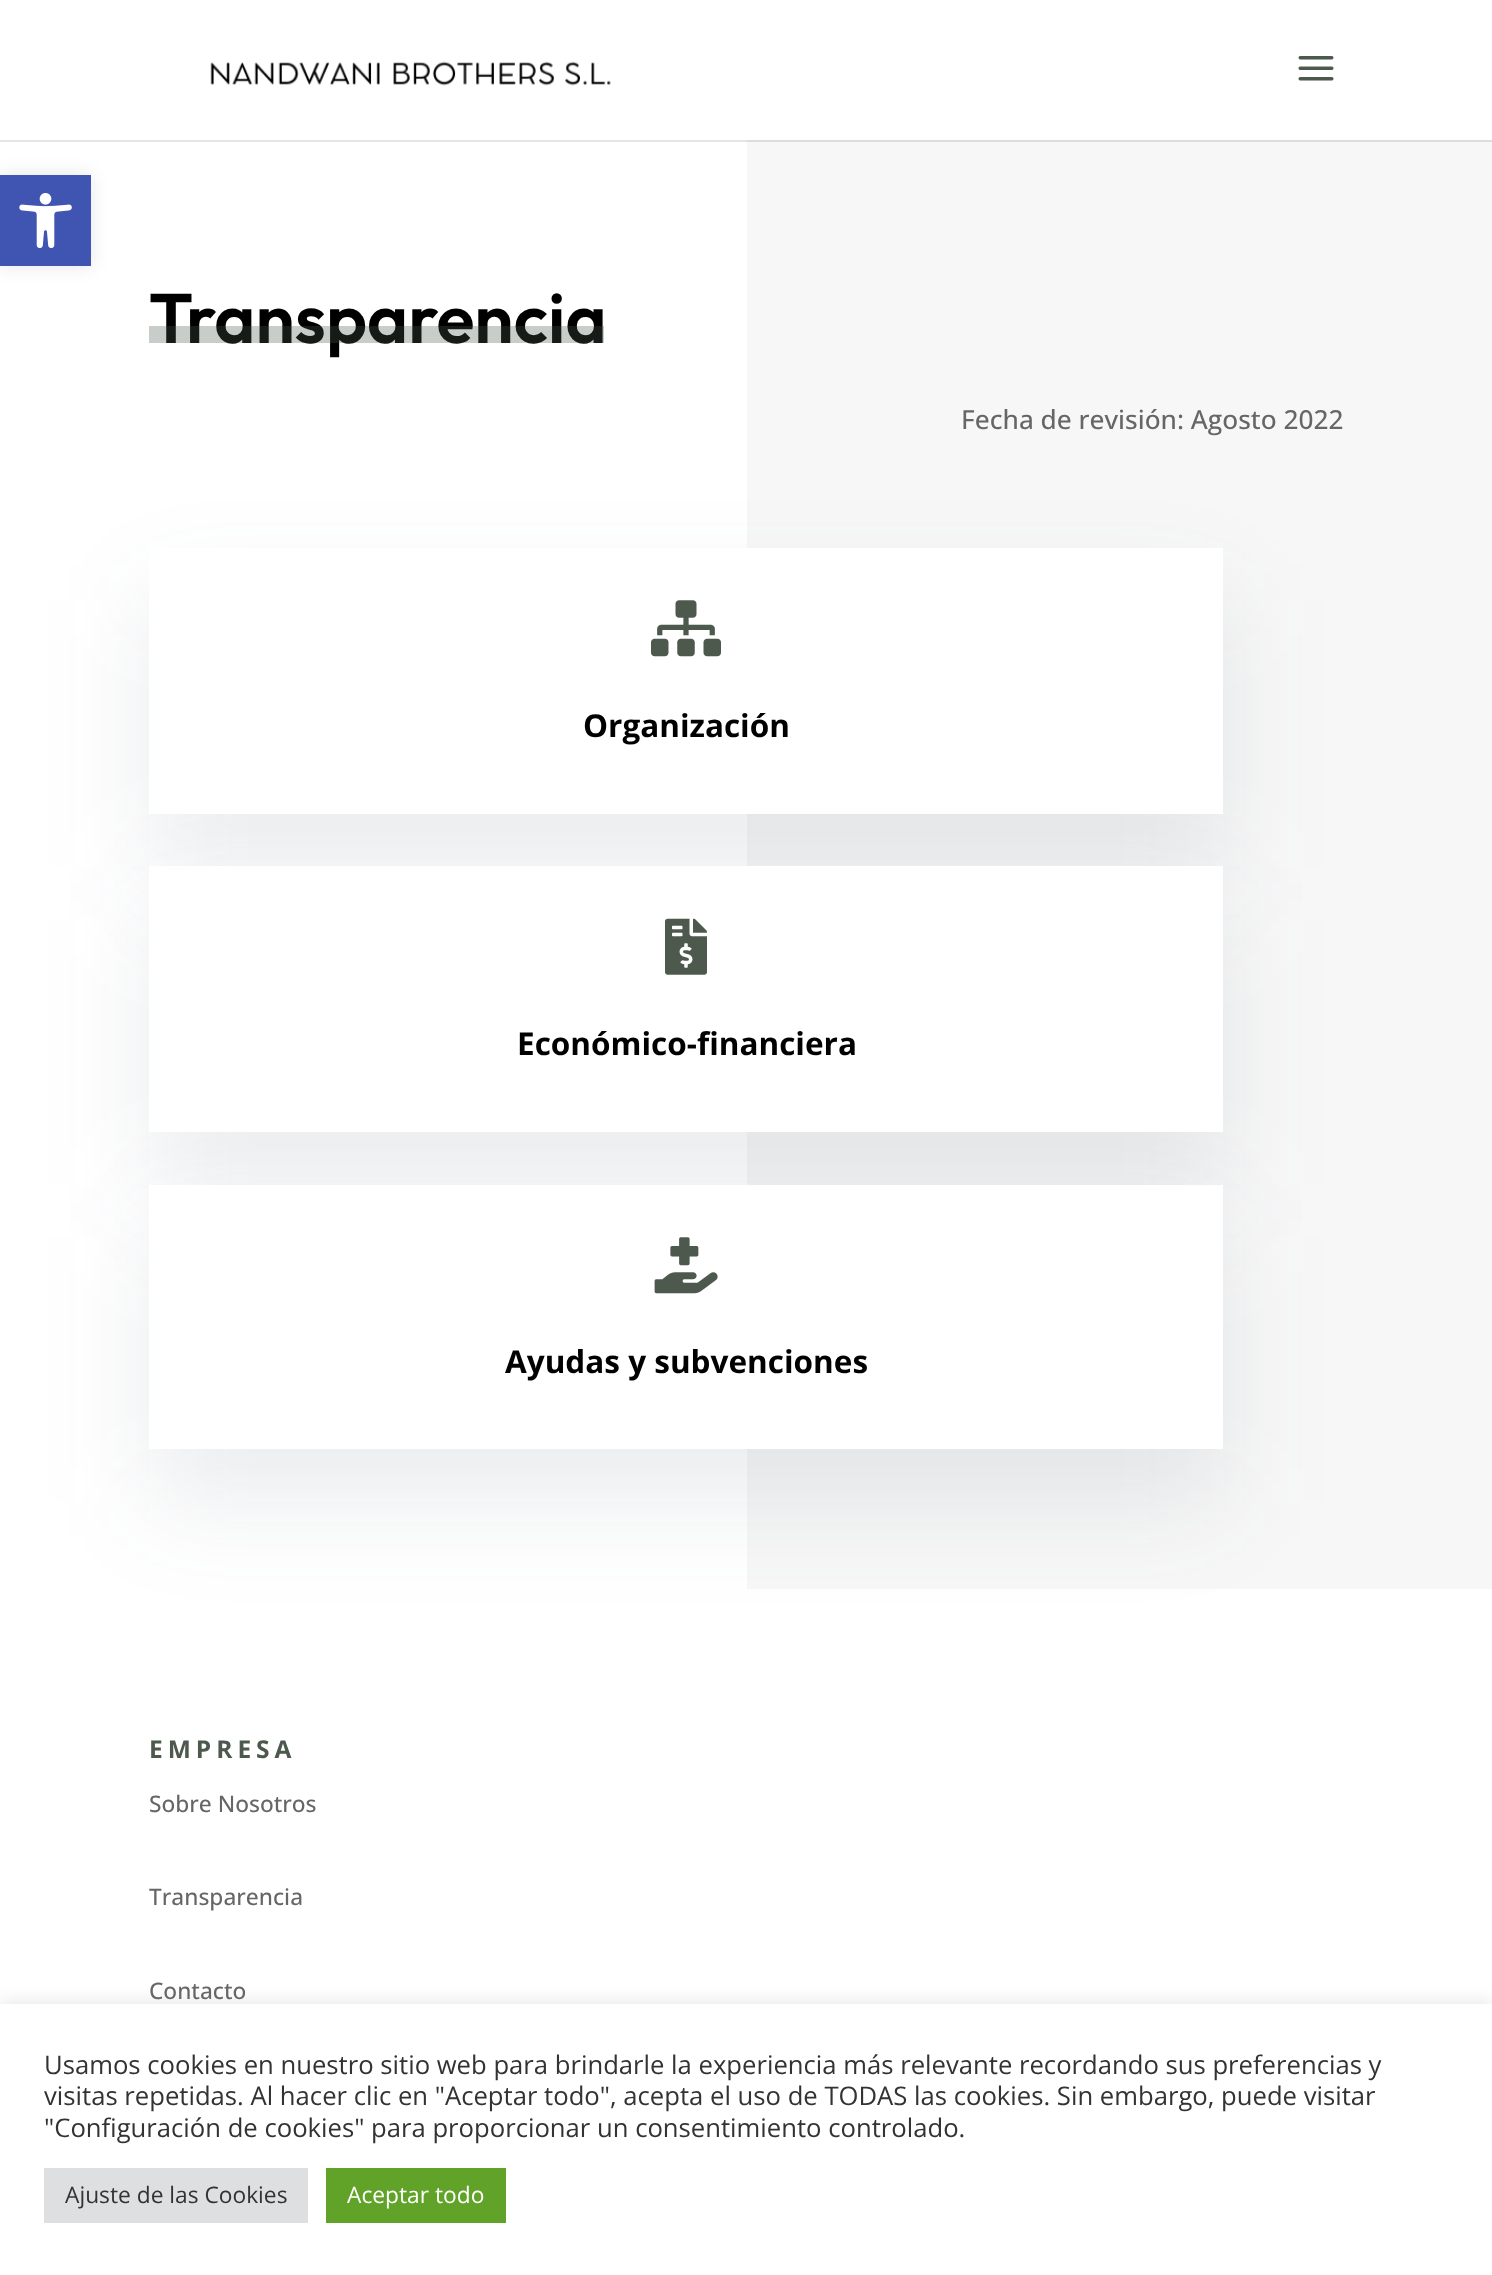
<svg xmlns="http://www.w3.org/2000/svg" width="1492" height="2275">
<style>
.a{font:600 70px Outfit;fill:#000}
.b{font:500 26.25px Open Sans;fill:#666}
.c{font:bold 31.5px Open Sans;fill:#000}
.d{font:bold 24.5px Open Sans;letter-spacing:5px;fill:#4c594c}
.e{font:500 22.75px Open Sans;fill:#666}
.f{font:25.67px Open Sans;fill:#333}
.g{font:22.75px Open Sans;fill:#333}
.h{font:22.75px Open Sans;fill:#fff}
</style>
<rect width="100%" height="100%" fill="#fff"/>
<path fill="#0000001a" filter="blur(9px)" d="M0 175h91v91H0z"/>
<path fill="#4054b2" d="M0 175h91v91H0z"/>
<image href="1.png" x="19" y="193" width="53" height="56"/>
<path fill="#f7f7f7" d="M747 140h745v1449H747z"/>
<path fill="#0000001a" d="M0 140v2h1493v-140v138z"/>
<image href="2.png" x="210" y="61" width="401" height="25"/>
<image href="3.png" x="1298" y="56" width="36" height="25"/>
<path fill="#3542551a" filter="blur(52.5px)" d="M149 600h1074v266H149z"/>
<path fill="#fff" d="M149 548h1074v266H149z"/>
<image href="4.png" x="651" y="600" width="70" height="57"/>
<path fill="#3542551a" filter="blur(52.5px)" d="M149 919h1074v266H149z"/>
<path fill="#fff" d="M149 866h1074v266H149z"/>
<image href="5.png" x="665" y="918" width="42" height="57"/>
<path fill="#3542551a" filter="blur(52.5px)" d="M149 1237h1074v265H149z"/>
<path fill="#fff" d="M149 1185h1074v264H149z"/>
<image href="6.png" x="654" y="1237" width="64" height="57"/>
<path fill="#acabab4d" filter="blur(9px)" d="M0 2002h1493v271H0z"/>
<path fill="#fff" d="M0 2004h1492v271H0z"/>
<path fill="#dedfe0" d="M44 2168h264v55H44z"/>
<path fill="#61a229" d="M326 2168h180v55H326z"/>
<text class="a" x="149" y="343">Transparencia</text>
<path fill="#4c594c4d" d="M149 326h455v17H149z"/>
<text class="b" x="961" y="429">Fecha de revisión: Agosto 2022</text>
<text class="c" x="583" y="737">Organización</text>
<text class="c" x="517" y="1055">Económico-financiera</text>
<text class="c" x="505" y="1373">Ayudas y subvenciones</text>
<text class="d" x="149" y="1758">EMPRESA</text>
<text class="e" x="149" y="1812">Sobre Nosotros</text>
<text class="e" x="149" y="1905">Transparencia</text>
<text class="e" x="149" y="1999">Contacto</text>
<text class="f" x="44" y="2074">Usamos cookies en nuestro sitio web para brindarle la experiencia más relevante recordando sus preferencias y</text>
<text class="f" x="44" y="2105">visitas repetidas. Al hacer clic en "Aceptar todo", acepta el uso de TODAS las cookies. Sin embargo, puede visitar</text>
<text class="f" x="44" y="2137">"Configuración de cookies" para proporcionar un consentimiento controlado.</text>
<text class="g" x="65" y="2203">Ajuste de las Cookies</text>
<text class="h" x="347" y="2203">Aceptar todo</text>
</svg>
